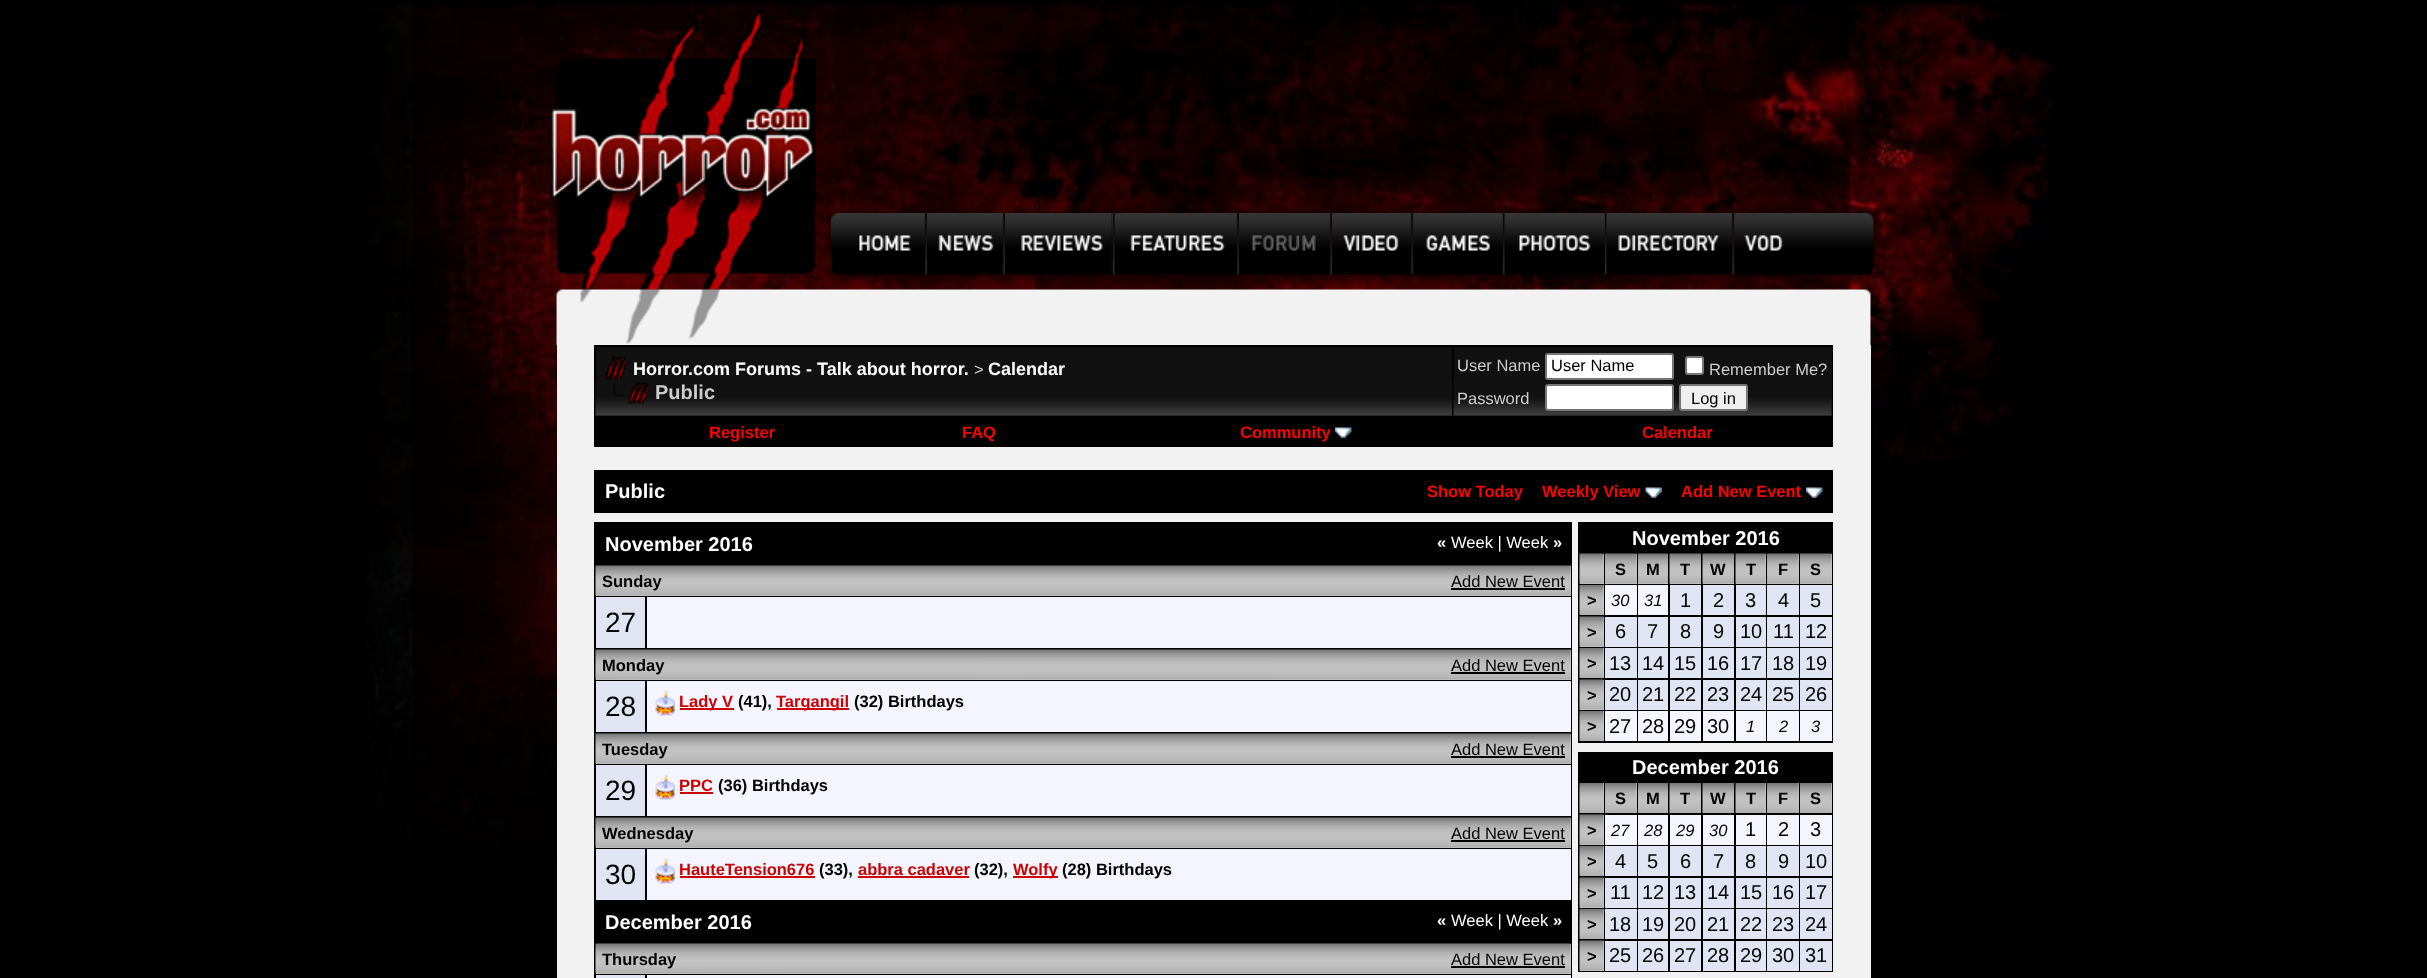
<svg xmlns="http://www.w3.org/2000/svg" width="2427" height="978">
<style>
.a{font:bold 18px Liberation Sans;fill:#fff}
.b{font:16.5px Liberation Sans;fill:#ccc}
.c{font:bold 20px Liberation Sans;fill:#ccc}
.d{font:16.5px Liberation Sans;fill:#000}
.e{font:bold 16.5px Liberation Sans;fill:#f00}
.f{font:bold 20px Liberation Sans;fill:#fff}
.g{font:bold 16.5px Liberation Sans;fill:#fff}
.h{font:16.5px Liberation Sans;fill:#fff}
.i{font:bold 16.5px Liberation Sans;fill:#000}
.j{font:28px Liberation Sans;fill:#000}
.k{font:bold 16.5px Liberation Sans;fill:#c00}
.l{font:italic 16.5px Liberation Sans;fill:#000}
.m{font:20px Liberation Sans;fill:#000}
</style>
<rect width="100%" height="100%" fill="#000"/>
<image href="1.png" x="366" y="0" width="1690" height="863"/>
<image href="2.png" x="665" y="9" width="141" height="50"/>
<image href="3.png" x="550" y="58" width="265" height="217"/>
<image href="4.png" x="548" y="175" width="2" height="25"/>
<image href="5.png" x="814" y="58" width="2" height="210"/>
<image href="6.png" x="832" y="206" width="1042" height="7"/>
<image href="7.png" x="831" y="213" width="95" height="62"/>
<image href="8.png" x="925" y="213" width="2" height="71"/>
<image href="9.png" x="927" y="213" width="77" height="62"/>
<image href="10.png" x="1003" y="213" width="2" height="73"/>
<image href="11.png" x="1005" y="213" width="107" height="62"/>
<image href="12.png" x="1111" y="213" width="2" height="72"/>
<image href="13.png" x="1113" y="213" width="125" height="62"/>
<image href="14.png" x="1237" y="213" width="2" height="71"/>
<image href="15.png" x="1239" y="213" width="92" height="62"/>
<image href="16.png" x="1330" y="213" width="2" height="74"/>
<image href="17.png" x="1332" y="213" width="80" height="62"/>
<image href="18.png" x="1411" y="213" width="92" height="62"/>
<image href="19.png" x="1503" y="213" width="102" height="62"/>
<image href="20.png" x="1605" y="213" width="126" height="62"/>
<image href="21.png" x="1731" y="213" width="2" height="71"/>
<image href="22.png" x="824" y="217" width="7" height="64"/>
<image href="23.png" x="1732" y="213" width="142" height="62"/>
<image href="24.png" x="1873" y="214" width="11" height="69"/>
<image href="25.png" x="581" y="274" width="150" height="16"/>
<image href="26.png" x="831" y="274" width="95" height="13"/>
<image href="27.png" x="927" y="274" width="77" height="12"/>
<image href="28.png" x="1005" y="274" width="107" height="13"/>
<image href="29.png" x="1113" y="274" width="125" height="11"/>
<image href="30.png" x="1239" y="274" width="92" height="13"/>
<image href="31.png" x="1332" y="274" width="399" height="13"/>
<image href="32.png" x="1732" y="274" width="142" height="14"/>
<image href="33.png" x="556" y="289" width="1315" height="56"/>
<path fill="#f2f2f2" d="M557 345h1314v633H557z"/>
<path fill="#000" d="M594 345h1239v102H594z"/>
<path fill="#111" d="M596 347h856v69H596z"/>
<image href="34.png" x="595" y="378" width="857" height="38"/>
<image href="35.png" x="606" y="357" width="20" height="23"/>
<image href="36.png" x="613" y="382" width="36" height="22"/>
<path fill="#111" d="M1454 347h378v69H1454z"/>
<image href="37.png" x="1453" y="378" width="379" height="38"/>
<rect fill="#fff" stroke="#767676" stroke-width="2" x="1546" y="354" width="127" height="25" rx="2"/>
<rect fill="#fff" stroke="#767676" stroke-width="2" x="1686" y="357" width="17" height="17" rx="2"/>
<rect fill="#fff" stroke="#767676" stroke-width="2" x="1546" y="385" width="127" height="25" rx="2"/>
<rect fill="#efefef" stroke="#767676" stroke-width="2" x="1680" y="385" width="67" height="25" rx="2"/>
<image href="38.png" x="1335" y="427" width="17" height="11"/>
<path fill="#000" d="M594 470h1239v43H594z"/>
<image href="39.png" x="1645" y="487" width="17" height="11"/>
<image href="38.png" x="1806" y="487" width="17" height="11"/>
<path fill="#000" d="M594 522h978v456H594z"/>
<path fill="#ccc" d="M596 566h975v30H596z"/>
<image href="40.png" x="595" y="565" width="976" height="31"/>
<path fill="#000" d="M1451 588h114v2H1451z"/>
<path fill="#e1e4f2" d="M596 597h49v51H596z"/>
<path fill="#f5f5ff" d="M647 597h924v51H647z"/>
<path fill="#ccc" d="M596 650h975v30H596z"/>
<image href="41.png" x="595" y="649" width="976" height="31"/>
<path fill="#000" d="M1451 672h114v2H1451z"/>
<path fill="#e1e4f2" d="M596 681h49v51H596z"/>
<path fill="#f5f5ff" d="M647 681h924v51H647z"/>
<image href="42.png" x="655" y="690" width="20" height="26"/>
<path fill="#c00" d="M680 708h54v2H680z"/>
<path fill="#c00" d="M777 708h72v2H777z"/>
<path fill="#ccc" d="M596 734h975v30H596z"/>
<image href="43.png" x="595" y="733" width="976" height="31"/>
<path fill="#000" d="M1451 756h114v2H1451z"/>
<path fill="#e1e4f2" d="M596 765h49v51H596z"/>
<path fill="#f5f5ff" d="M647 765h924v51H647z"/>
<image href="42.png" x="655" y="774" width="20" height="26"/>
<path fill="#c00" d="M680 792h33v2H680z"/>
<path fill="#ccc" d="M596 818h975v30H596z"/>
<image href="44.png" x="595" y="817" width="976" height="31"/>
<path fill="#000" d="M1451 840h114v2H1451z"/>
<path fill="#e1e4f2" d="M596 849h49v51H596z"/>
<path fill="#f5f5ff" d="M647 849h924v51H647z"/>
<image href="42.png" x="655" y="858" width="20" height="26"/>
<path fill="#c00" d="M680 876h135v2H680z"/>
<path fill="#c00" d="M858 876h111v2H858z"/>
<path fill="#c00" d="M1013 876h45v2H1013z"/>
<path fill="#ccc" d="M596 944h975v30H596z"/>
<image href="45.png" x="595" y="943" width="976" height="31"/>
<path fill="#000" d="M1451 966h114v2H1451z"/>
<path fill="#e1e4f2" d="M596 975h49v3H596z"/>
<path fill="#f5f5ff" d="M647 975h924v3H647z"/>
<path fill="#000" d="M1578 522h255v221H1578z"/>
<path fill="#ccc" d="M1580 554h24v30H1580z"/>
<image href="46.png" x="1579" y="553" width="25" height="31"/>
<path fill="#ccc" d="M1605 554h32v30H1605z"/>
<image href="47.png" x="1605" y="553" width="32" height="31"/>
<path fill="#ccc" d="M1638 583h30v1H1638z"/>
<image href="48.png" x="1638" y="553" width="30" height="31"/>
<path fill="#ccc" d="M1670 583h31v1H1670z"/>
<image href="49.png" x="1669" y="553" width="32" height="31"/>
<path fill="#ccc" d="M1703 583h31v1H1703z"/>
<image href="49.png" x="1702" y="553" width="32" height="31"/>
<path fill="#ccc" d="M1736 554h30v30H1736z"/>
<image href="50.png" x="1735" y="553" width="31" height="31"/>
<path fill="#ccc" d="M1767 554h32v30H1767z"/>
<image href="47.png" x="1767" y="553" width="32" height="31"/>
<path fill="#ccc" d="M1800 554h32v30H1800z"/>
<image href="47.png" x="1800" y="553" width="32" height="31"/>
<path fill="#ccc" d="M1603 585h1v30H1603z"/>
<image href="51.png" x="1579" y="585" width="25" height="30"/>
<path fill="#f5f5ff" d="M1605 585h32v30H1605z"/>
<path fill="#f5f5ff" d="M1638 585h30v30H1638z"/>
<path fill="#e1e4f2" d="M1670 585h31v30H1670z"/>
<path fill="#e1e4f2" d="M1703 585h31v30H1703z"/>
<path fill="#e1e4f2" d="M1736 585h30v30H1736z"/>
<path fill="#e1e4f2" d="M1767 585h32v30H1767z"/>
<path fill="#e1e4f2" d="M1800 585h32v30H1800z"/>
<path fill="#ccc" d="M1580 617h24v30H1580z"/>
<image href="46.png" x="1579" y="616" width="25" height="31"/>
<path fill="#e1e4f2" d="M1605 617h32v30H1605z"/>
<path fill="#e1e4f2" d="M1638 617h30v30H1638z"/>
<path fill="#e1e4f2" d="M1670 617h31v30H1670z"/>
<path fill="#e1e4f2" d="M1703 617h31v30H1703z"/>
<path fill="#e1e4f2" d="M1736 617h30v30H1736z"/>
<path fill="#e1e4f2" d="M1767 617h32v30H1767z"/>
<path fill="#e1e4f2" d="M1800 617h32v30H1800z"/>
<path fill="#ccc" d="M1603 648h1v30H1603z"/>
<image href="51.png" x="1579" y="648" width="25" height="30"/>
<path fill="#e1e4f2" d="M1605 648h32v30H1605z"/>
<path fill="#e1e4f2" d="M1638 648h30v30H1638z"/>
<path fill="#e1e4f2" d="M1670 648h31v30H1670z"/>
<path fill="#e1e4f2" d="M1703 648h31v30H1703z"/>
<path fill="#e1e4f2" d="M1736 648h30v30H1736z"/>
<path fill="#e1e4f2" d="M1767 648h32v30H1767z"/>
<path fill="#e1e4f2" d="M1800 648h32v30H1800z"/>
<path fill="#ccc" d="M1580 680h24v30H1580z"/>
<image href="46.png" x="1579" y="679" width="25" height="31"/>
<path fill="#e1e4f2" d="M1605 680h32v30H1605z"/>
<path fill="#e1e4f2" d="M1638 680h30v30H1638z"/>
<path fill="#e1e4f2" d="M1670 680h31v30H1670z"/>
<path fill="#e1e4f2" d="M1703 680h31v30H1703z"/>
<path fill="#e1e4f2" d="M1736 680h30v30H1736z"/>
<path fill="#e1e4f2" d="M1767 680h32v30H1767z"/>
<path fill="#e1e4f2" d="M1800 680h32v30H1800z"/>
<path fill="#ccc" d="M1603 711h1v30H1603z"/>
<image href="51.png" x="1579" y="711" width="25" height="30"/>
<path fill="#f5f5ff" d="M1605 711h32v30H1605z"/>
<path fill="#f5f5ff" d="M1638 711h30v30H1638z"/>
<path fill="#f5f5ff" d="M1670 711h31v30H1670z"/>
<path fill="#f5f5ff" d="M1703 711h31v30H1703z"/>
<path fill="#f5f5ff" d="M1736 711h30v30H1736z"/>
<path fill="#f5f5ff" d="M1767 711h32v30H1767z"/>
<path fill="#f5f5ff" d="M1800 711h32v30H1800z"/>
<path fill="#000" d="M1578 752h255v220H1578z"/>
<path fill="#ccc" d="M1603 783h1v30H1603z"/>
<image href="51.png" x="1579" y="783" width="25" height="30"/>
<path fill="#ccc" d="M1636 783h1v30H1636z"/>
<image href="52.png" x="1605" y="783" width="32" height="30"/>
<image href="53.png" x="1638" y="783" width="30" height="30"/>
<image href="54.png" x="1669" y="783" width="32" height="30"/>
<image href="54.png" x="1702" y="783" width="32" height="30"/>
<path fill="#ccc" d="M1765 783h1v30H1765z"/>
<image href="55.png" x="1735" y="783" width="31" height="30"/>
<path fill="#ccc" d="M1798 783h1v30H1798z"/>
<image href="52.png" x="1767" y="783" width="32" height="30"/>
<path fill="#ccc" d="M1831 783h1v30H1831z"/>
<image href="52.png" x="1800" y="783" width="32" height="30"/>
<path fill="#ccc" d="M1580 815h24v30H1580z"/>
<image href="46.png" x="1579" y="814" width="25" height="31"/>
<path fill="#f5f5ff" d="M1605 815h32v30H1605z"/>
<path fill="#f5f5ff" d="M1638 815h30v30H1638z"/>
<path fill="#f5f5ff" d="M1670 815h31v30H1670z"/>
<path fill="#f5f5ff" d="M1703 815h31v30H1703z"/>
<path fill="#f5f5ff" d="M1736 815h30v30H1736z"/>
<path fill="#f5f5ff" d="M1767 815h32v30H1767z"/>
<path fill="#f5f5ff" d="M1800 815h32v30H1800z"/>
<path fill="#ccc" d="M1603 846h1v30H1603z"/>
<image href="51.png" x="1579" y="846" width="25" height="30"/>
<path fill="#e1e4f2" d="M1605 846h32v30H1605z"/>
<path fill="#e1e4f2" d="M1638 846h30v30H1638z"/>
<path fill="#e1e4f2" d="M1670 846h31v30H1670z"/>
<path fill="#e1e4f2" d="M1703 846h31v30H1703z"/>
<path fill="#e1e4f2" d="M1736 846h30v30H1736z"/>
<path fill="#e1e4f2" d="M1767 846h32v30H1767z"/>
<path fill="#e1e4f2" d="M1800 846h32v30H1800z"/>
<path fill="#ccc" d="M1580 878h24v30H1580z"/>
<image href="46.png" x="1579" y="877" width="25" height="31"/>
<path fill="#e1e4f2" d="M1605 878h32v30H1605z"/>
<path fill="#e1e4f2" d="M1638 878h30v30H1638z"/>
<path fill="#e1e4f2" d="M1670 878h31v30H1670z"/>
<path fill="#e1e4f2" d="M1703 878h31v30H1703z"/>
<path fill="#e1e4f2" d="M1736 878h30v30H1736z"/>
<path fill="#e1e4f2" d="M1767 878h32v30H1767z"/>
<path fill="#e1e4f2" d="M1800 878h32v30H1800z"/>
<path fill="#ccc" d="M1603 909h1v30H1603z"/>
<image href="51.png" x="1579" y="909" width="25" height="30"/>
<path fill="#e1e4f2" d="M1605 909h32v30H1605z"/>
<path fill="#e1e4f2" d="M1638 909h30v30H1638z"/>
<path fill="#e1e4f2" d="M1670 909h31v30H1670z"/>
<path fill="#e1e4f2" d="M1703 909h31v30H1703z"/>
<path fill="#e1e4f2" d="M1736 909h30v30H1736z"/>
<path fill="#e1e4f2" d="M1767 909h32v30H1767z"/>
<path fill="#e1e4f2" d="M1800 909h32v30H1800z"/>
<path fill="#ccc" d="M1580 941h24v30H1580z"/>
<image href="46.png" x="1579" y="940" width="25" height="31"/>
<path fill="#e1e4f2" d="M1605 941h32v30H1605z"/>
<path fill="#e1e4f2" d="M1638 941h30v30H1638z"/>
<path fill="#e1e4f2" d="M1670 941h31v30H1670z"/>
<path fill="#e1e4f2" d="M1703 941h31v30H1703z"/>
<path fill="#e1e4f2" d="M1736 941h30v30H1736z"/>
<path fill="#e1e4f2" d="M1767 941h32v30H1767z"/>
<path fill="#e1e4f2" d="M1800 941h32v30H1800z"/>
<text class="a" x="633" y="375">Horror.com Forums - Talk about horror.</text>
<text class="b" x="974" y="375">&gt;</text>
<text class="a" x="988" y="375">Calendar</text>
<text class="c" x="655" y="399">Public</text>
<text class="b" x="1457" y="371">User Name</text>
<text class="d" x="1551" y="371">User Name</text>
<text class="b" x="1709" y="375">Remember Me?</text>
<text class="b" x="1457" y="404">Password</text>
<text class="d" x="1691" y="404">Log in</text>
<text class="e" x="709" y="438">Register</text>
<text class="e" x="962" y="438">FAQ</text>
<text class="e" x="1240" y="438">Community</text>
<text class="e" x="1642" y="438">Calendar</text>
<text class="f" x="605" y="498">Public</text>
<text class="e" x="1427" y="497">Show Today</text>
<text class="e" x="1542" y="497">Weekly View</text>
<text class="e" x="1681" y="497">Add New Event</text>
<text class="f" x="605" y="551">November 2016</text>
<text class="g" x="1437" y="548">«</text>
<text class="h" x="1451" y="548">Week | Week</text>
<text class="g" x="1553" y="548">»</text>
<text class="i" x="602" y="587">Sunday</text>
<text class="d" x="1451" y="587">Add New Event</text>
<text class="j" x="605" y="632">27</text>
<text class="i" x="602" y="671">Monday</text>
<text class="d" x="1451" y="671">Add New Event</text>
<text class="j" x="605" y="716">28</text>
<text class="k" x="679" y="707">Lady V</text>
<text class="i" x="738" y="707">(41),</text>
<text class="k" x="776" y="707">Targangil</text>
<text class="i" x="854" y="707">(32) Birthdays</text>
<text class="i" x="602" y="755">Tuesday</text>
<text class="d" x="1451" y="755">Add New Event</text>
<text class="j" x="605" y="800">29</text>
<text class="k" x="679" y="791">PPC</text>
<text class="i" x="718" y="791">(36) Birthdays</text>
<text class="i" x="602" y="839">Wednesday</text>
<text class="d" x="1451" y="839">Add New Event</text>
<text class="j" x="605" y="884">30</text>
<text class="k" x="679" y="875">HauteTension676</text>
<text class="i" x="819" y="875">(33),</text>
<text class="k" x="858" y="875">abbra cadaver</text>
<text class="i" x="974" y="875">(32),</text>
<text class="k" x="1013" y="875">Wolfy</text>
<text class="i" x="1062" y="875">(28) Birthdays</text>
<text class="f" x="605" y="929">December 2016</text>
<text class="g" x="1437" y="926">«</text>
<text class="h" x="1451" y="926">Week | Week</text>
<text class="g" x="1553" y="926">»</text>
<text class="i" x="602" y="965">Thursday</text>
<text class="d" x="1451" y="965">Add New Event</text>
<text class="f" x="1632" y="545">November 2016</text>
<text class="i" x="1615" y="575">S</text>
<text class="i" x="1646" y="575">M</text>
<text class="i" x="1680" y="575">T</text>
<text class="i" x="1710" y="575">W</text>
<text class="i" x="1746" y="575">T</text>
<text class="i" x="1778" y="575">F</text>
<text class="i" x="1810" y="575">S</text>
<text class="i" x="1587" y="606">&gt;</text>
<text class="l" x="1611" y="606">30</text>
<text class="l" x="1644" y="606">31</text>
<text class="m" x="1680" y="607">1</text>
<text class="m" x="1713" y="607">2</text>
<text class="m" x="1745" y="607">3</text>
<text class="m" x="1778" y="607">4</text>
<text class="m" x="1810" y="607">5</text>
<text class="i" x="1587" y="638">&gt;</text>
<text class="m" x="1615" y="638">6</text>
<text class="m" x="1647" y="638">7</text>
<text class="m" x="1680" y="638">8</text>
<text class="m" x="1713" y="638">9</text>
<text class="m" x="1740" y="638">10</text>
<text class="m" x="1773" y="638">11</text>
<text class="m" x="1805" y="638">12</text>
<text class="i" x="1587" y="669">&gt;</text>
<text class="m" x="1609" y="670">13</text>
<text class="m" x="1642" y="670">14</text>
<text class="m" x="1674" y="670">15</text>
<text class="m" x="1707" y="670">16</text>
<text class="m" x="1740" y="670">17</text>
<text class="m" x="1772" y="670">18</text>
<text class="m" x="1805" y="670">19</text>
<text class="i" x="1587" y="701">&gt;</text>
<text class="m" x="1609" y="701">20</text>
<text class="m" x="1642" y="701">21</text>
<text class="m" x="1674" y="701">22</text>
<text class="m" x="1707" y="701">23</text>
<text class="m" x="1740" y="701">24</text>
<text class="m" x="1772" y="701">25</text>
<text class="m" x="1805" y="701">26</text>
<text class="i" x="1587" y="732">&gt;</text>
<text class="m" x="1609" y="733">27</text>
<text class="m" x="1642" y="733">28</text>
<text class="m" x="1674" y="733">29</text>
<text class="m" x="1707" y="733">30</text>
<text class="l" x="1746" y="732">1</text>
<text class="l" x="1779" y="732">2</text>
<text class="l" x="1811" y="732">3</text>
<text class="f" x="1632" y="774">December 2016</text>
<text class="i" x="1615" y="804">S</text>
<text class="i" x="1646" y="804">M</text>
<text class="i" x="1680" y="804">T</text>
<text class="i" x="1710" y="804">W</text>
<text class="i" x="1746" y="804">T</text>
<text class="i" x="1778" y="804">F</text>
<text class="i" x="1810" y="804">S</text>
<text class="i" x="1587" y="836">&gt;</text>
<text class="l" x="1611" y="836">27</text>
<text class="l" x="1644" y="836">28</text>
<text class="l" x="1676" y="836">29</text>
<text class="l" x="1709" y="836">30</text>
<text class="m" x="1745" y="836">1</text>
<text class="m" x="1778" y="836">2</text>
<text class="m" x="1810" y="836">3</text>
<text class="i" x="1587" y="867">&gt;</text>
<text class="m" x="1615" y="868">4</text>
<text class="m" x="1647" y="868">5</text>
<text class="m" x="1680" y="868">6</text>
<text class="m" x="1713" y="868">7</text>
<text class="m" x="1745" y="868">8</text>
<text class="m" x="1778" y="868">9</text>
<text class="m" x="1805" y="868">10</text>
<text class="i" x="1587" y="899">&gt;</text>
<text class="m" x="1610" y="899">11</text>
<text class="m" x="1642" y="899">12</text>
<text class="m" x="1674" y="899">13</text>
<text class="m" x="1707" y="899">14</text>
<text class="m" x="1740" y="899">15</text>
<text class="m" x="1772" y="899">16</text>
<text class="m" x="1805" y="899">17</text>
<text class="i" x="1587" y="930">&gt;</text>
<text class="m" x="1609" y="931">18</text>
<text class="m" x="1642" y="931">19</text>
<text class="m" x="1674" y="931">20</text>
<text class="m" x="1707" y="931">21</text>
<text class="m" x="1740" y="931">22</text>
<text class="m" x="1772" y="931">23</text>
<text class="m" x="1805" y="931">24</text>
<text class="i" x="1587" y="962">&gt;</text>
<text class="m" x="1609" y="962">25</text>
<text class="m" x="1642" y="962">26</text>
<text class="m" x="1674" y="962">27</text>
<text class="m" x="1707" y="962">28</text>
<text class="m" x="1740" y="962">29</text>
<text class="m" x="1772" y="962">30</text>
<text class="m" x="1805" y="962">31</text>
</svg>
